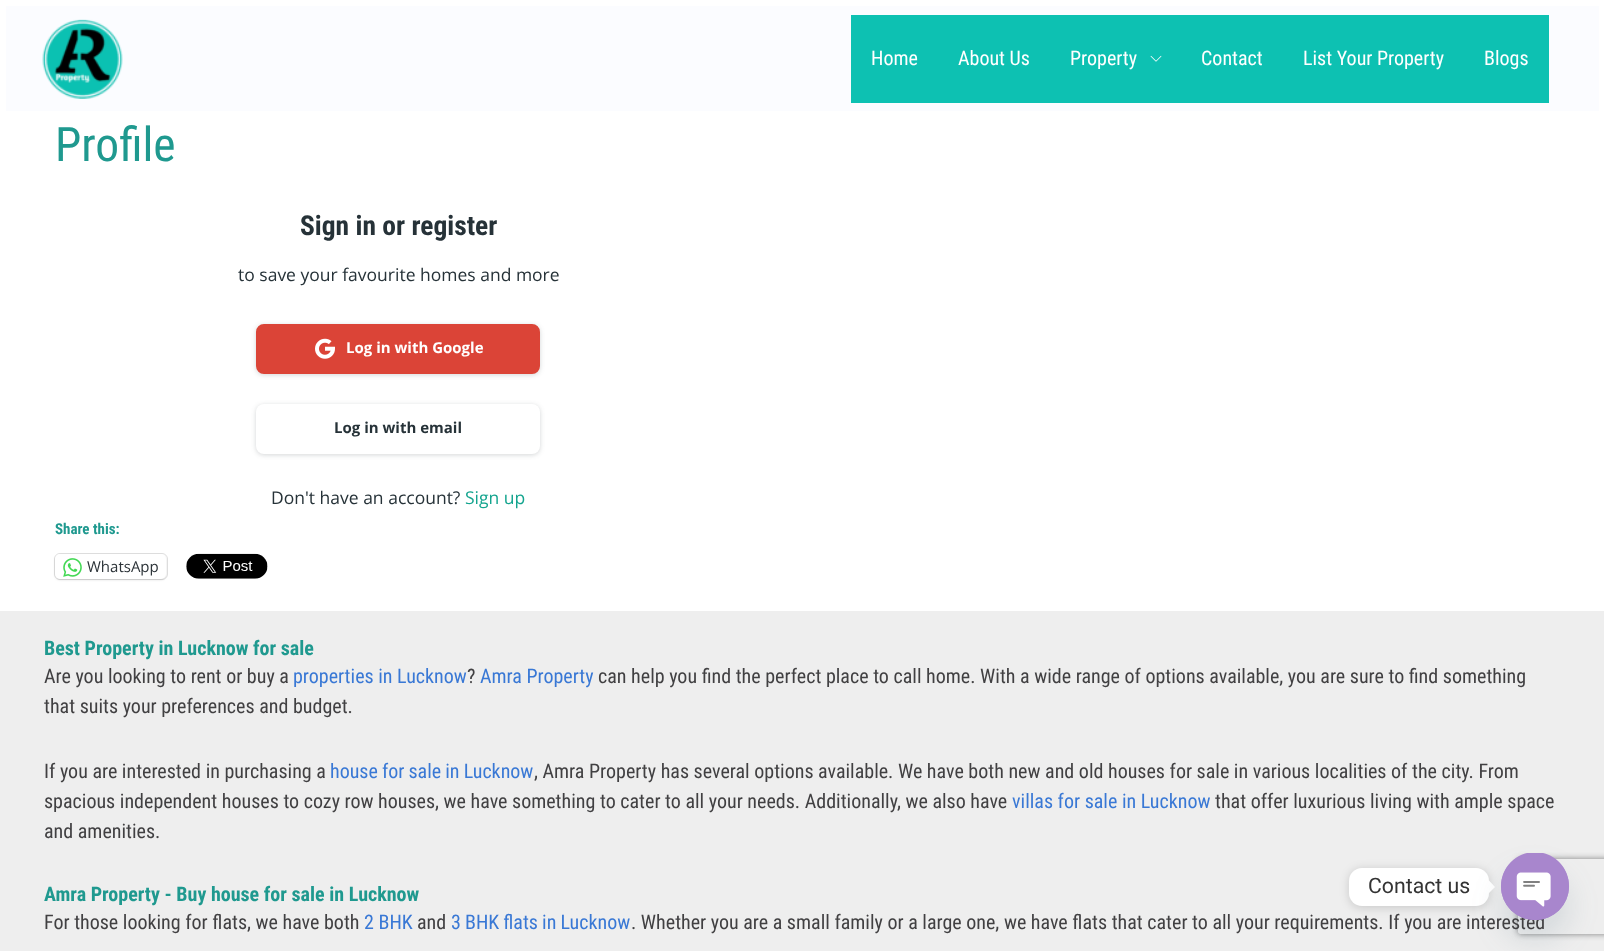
<svg xmlns="http://www.w3.org/2000/svg" width="1604" height="951">
<style>
.a{font:20px Roboto Condensed;fill:#fff}
.b{font:47.5px Roboto Condensed;fill:#1f998f}
.c{font:bold 27.5px Roboto Condensed;fill:#263238}
.d{font:17.5px Open Sans;fill:#263238}
.e{font:bold 15px Open Sans;fill:#fff}
.f{font:bold 15px Open Sans;fill:#263238}
.g{font:17.5px Open Sans;fill:#13a48e}
.h{font:bold 15px Roboto Condensed;fill:#1f998f}
.i{font:15px Open Sans;fill:#2c3338}
.j{font:bold 20px Roboto Condensed;fill:#1f998f}
.k{font:20px Roboto Condensed;fill:#414042}
.l{font:20px Roboto Condensed;fill:#3978d5}
.m{font:21.25px Roboto;fill:#333}
</style>
<defs>
<clipPath id="clip1"><path d="M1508 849h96v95h-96zm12.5 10h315c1.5 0 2.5 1 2.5 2.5v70c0 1.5-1 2.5-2.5 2.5h-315c-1.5 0-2.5-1-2.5-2.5v-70c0-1.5 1-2.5 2.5-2.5z" clip-rule="evenodd"/></clipPath>
</defs>
<rect width="100%" height="100%" fill="#fff"/>
<path fill="#fbfcff" d="M6 6h1593v105H6z"/>
<image href="1.png" x="42" y="19" width="81" height="80"/>
<path fill="#0dc1b2" d="M851 15h698v88H851z"/>
<image href="2.png" x="1150" y="55" width="12" height="7"/>
<rect fill="#26323833" filter="blur(2.5px)" x="256" y="325" width="284" height="50" rx="8"/>
<rect fill="#db4437" stroke="#db4437" stroke-width="3" x="257.5" y="325.5" width="281" height="47" rx="6.5"/>
<image href="3.png" x="315" y="338" width="20" height="21"/>
<rect fill="#26323833" filter="blur(2.5px)" x="256" y="405" width="284" height="50" rx="8"/>
<rect fill="#fff" x="256" y="404" width="284" height="50" rx="8"/>
<rect fill="none" stroke="#e0e0e0" x="54.5" y="553.5" width="113" height="26" rx="5.5"/>
<rect fill="#0000001f" filter="blur(1px)" x="55" y="555" width="111" height="25" rx="5"/>
<rect fill="#fff" x="55" y="554" width="111" height="25" rx="5"/>
<image href="4.png" x="63" y="558" width="19" height="19"/>
<image href="5.png" x="186" y="553" width="82" height="26"/>
<path fill="#eee" d="M0 611h1604v340H0z"/>
<g clip-path="url(#clip1)">
<rect fill="#808080" filter="blur(3px)" x="1518" y="859" width="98" height="75" rx="2.5"/>
</g>
<rect fill="#00000026" filter="blur(5px)" x="1349" y="869" width="140" height="39" rx="13"/>
<rect fill="#fff" x="1349" y="868" width="140" height="38" rx="13"/>
<path fill="#fff" d="M1489 893v-12.5l6 6.5z"/>
<rect fill="#49687e29" filter="blur(15px)" x="1501" y="873" width="68" height="67" rx="33.5"/>
<text class="a" x="871" y="65">Home</text>
<text class="a" x="958" y="65">About Us</text>
<text class="a" x="1070" y="65">Property</text>
<text class="a" x="1201" y="65">Contact</text>
<text class="a" x="1303" y="65">List Your Property</text>
<text class="a" x="1484" y="65">Blogs</text>
<text class="b" x="55" y="161">Profile</text>
<text class="c" x="300" y="235">Sign in or register</text>
<text class="d" x="238" y="281">to save your favourite homes and more</text>
<text class="e" x="346" y="353">Log in with Google</text>
<text class="f" x="334" y="433">Log in with email</text>
<text class="d" x="271" y="504">Don't have an account?</text>
<text class="g" x="465" y="504">Sign up</text>
<text class="h" x="55" y="534">Share this:</text>
<text class="i" x="87" y="572">WhatsApp</text>
<text class="j" x="44" y="655">Best Property in Lucknow for sale</text>
<text class="k" x="44" y="683">Are you looking to rent or buy a</text>
<text class="l" x="293" y="683">properties in Lucknow</text>
<text class="k" x="467" y="683">?</text>
<text class="l" x="480" y="683">Amra Property</text>
<text class="k" x="598" y="683">can help you find the perfect place to call home. With a wide range of options available, you are sure to find something</text>
<text class="k" x="44" y="713">that suits your preferences and budget.</text>
<text class="k" x="44" y="778">If you are interested in purchasing a</text>
<text class="l" x="330" y="778" word-spacing="-0.5">house for sale in Lucknow</text>
<text class="k" x="534" y="778">, Amra Property has several options available. We have both new and old houses for sale in various localities of the city. From</text>
<text class="k" x="44" y="808">spacious independent houses to cozy row houses, we have something to cater to all your needs. Additionally, we also have</text>
<text class="l" x="1012" y="808">villas for sale in Lucknow</text>
<text class="k" x="1215" y="808">that offer luxurious living with ample space</text>
<text class="k" x="44" y="838">and amenities.</text>
<text class="j" x="44" y="901">Amra Property - Buy house for sale in Lucknow</text>
<text class="k" x="44" y="929">For those looking for flats, we have both</text>
<text class="l" x="364" y="929">2 BHK</text>
<text class="k" x="417" y="929">and</text>
<text class="l" x="451" y="929" word-spacing="-0.5">3 BHK flats in Lucknow</text>
<text class="k" x="631" y="929">. Whether you are a small family or a large one, we have flats that cater to all your requirements. If you are interested</text>
<text class="m" x="1368" y="893">Contact us</text>
<rect fill="#a886cd" x="1501" y="853" width="68" height="67" rx="33.5"/>
<image href="6.png" x="1501" y="853" width="68" height="67"/>
</svg>
